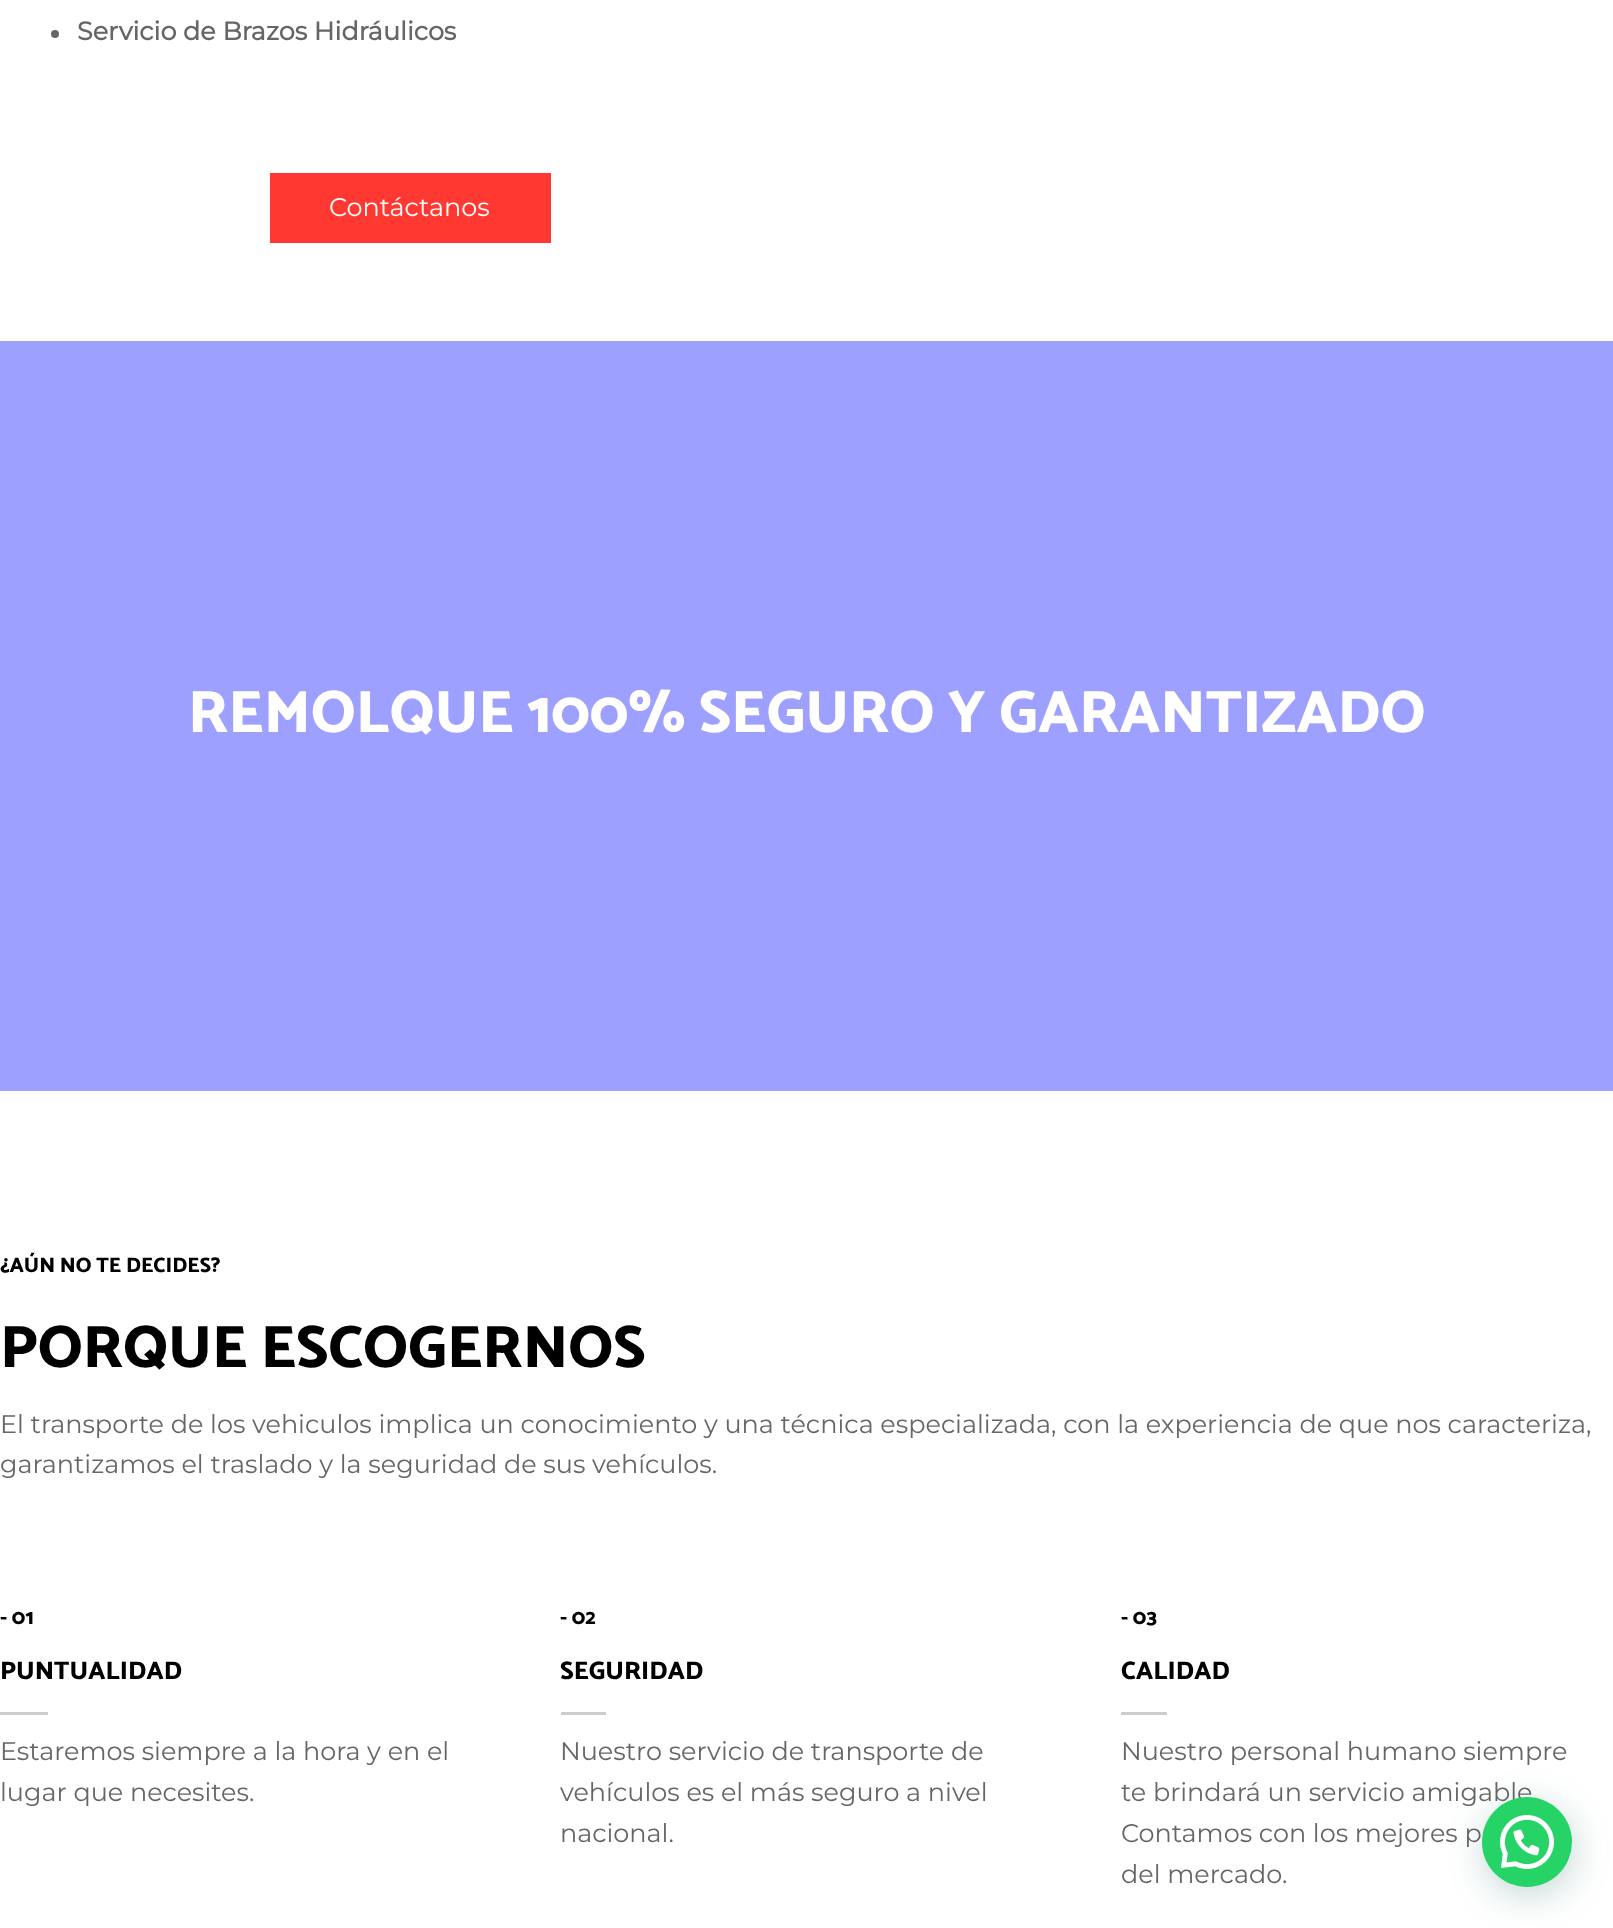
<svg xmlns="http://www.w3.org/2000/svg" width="1613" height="1928">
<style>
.a{font:bold 25.5px Montserrat;fill:#666}
.b{font:100 25.5px Montserrat;fill:#fff}
.c{font:100 60px Catamaran;fill:#fff}
.d{font:100 21px Catamaran;fill:#000}
.e{font:100 60px Catamaran;fill:#000}
.f{font:100 25.5px Montserrat;fill:#666}
.g{font:100 25.5px Catamaran;fill:#000}
</style>
<rect width="100%" height="100%" fill="#fff"/>
<circle fill="#666" cx="55" cy="34" r="4"/>
<path fill="#ff3931" d="M270 173h281v70H270z"/>
<path fill="#9ea0ff" d="M0 341h1613v750H0z"/>
<path fill="#ccc" d="M0 1712h48v3H0z"/>
<path fill="#ccc" d="M561 1712h45v3H561z"/>
<path fill="#ccc" d="M1121 1712h46v3H1121z"/>
<rect fill="#075e543d" filter="blur(18px)" x="1484" y="1806" width="90" height="90" rx="45"/>
<text class="a" x="77" y="40">Servicio de Brazos Hidráulicos</text>
<text class="b" x="329" y="216">Contáctanos</text>
<text class="c" x="188" y="732">REMOLQUE 100% SEGURO Y GARANTIZADO</text>
<text class="d" x="0" y="1272">¿AÚN NO TE DECIDES?</text>
<text class="e" x="0" y="1367">PORQUE ESCOGERNOS</text>
<text class="f" x="0" y="1433">El transporte de los vehiculos implica un conocimiento y una técnica especializada, con la experiencia de que nos caracteriza,</text>
<text class="f" x="0" y="1473">garantizamos el traslado y la seguridad de sus vehículos.</text>
<text class="d" x="0" y="1624">- 01</text>
<text class="g" x="0" y="1679">PUNTUALIDAD</text>
<text class="f" x="0" y="1760">Estaremos siempre a la hora y en el</text>
<text class="f" x="0" y="1801">lugar que necesites.</text>
<text class="d" x="560" y="1624">- 02</text>
<text class="g" x="560" y="1679">SEGURIDAD</text>
<text class="f" x="560" y="1760">Nuestro servicio de transporte de</text>
<text class="f" x="560" y="1801">vehículos es el más seguro a nivel</text>
<text class="f" x="560" y="1842">nacional.</text>
<text class="d" x="1121" y="1624">- 03</text>
<text class="g" x="1121" y="1679">CALIDAD</text>
<text class="f" x="1121" y="1760">Nuestro personal humano siempre</text>
<text class="f" x="1121" y="1801">te brindará un servicio amigable</text>
<text class="f" x="1121" y="1842">Contamos con los mejores p</text>
<text class="f" x="1121" y="1883">del mercado.</text>
<circle fill="#25d366" cx="1527" cy="1842" r="45"/>
<image href="1.png" x="1500" y="1815" width="54" height="54"/>
</svg>
